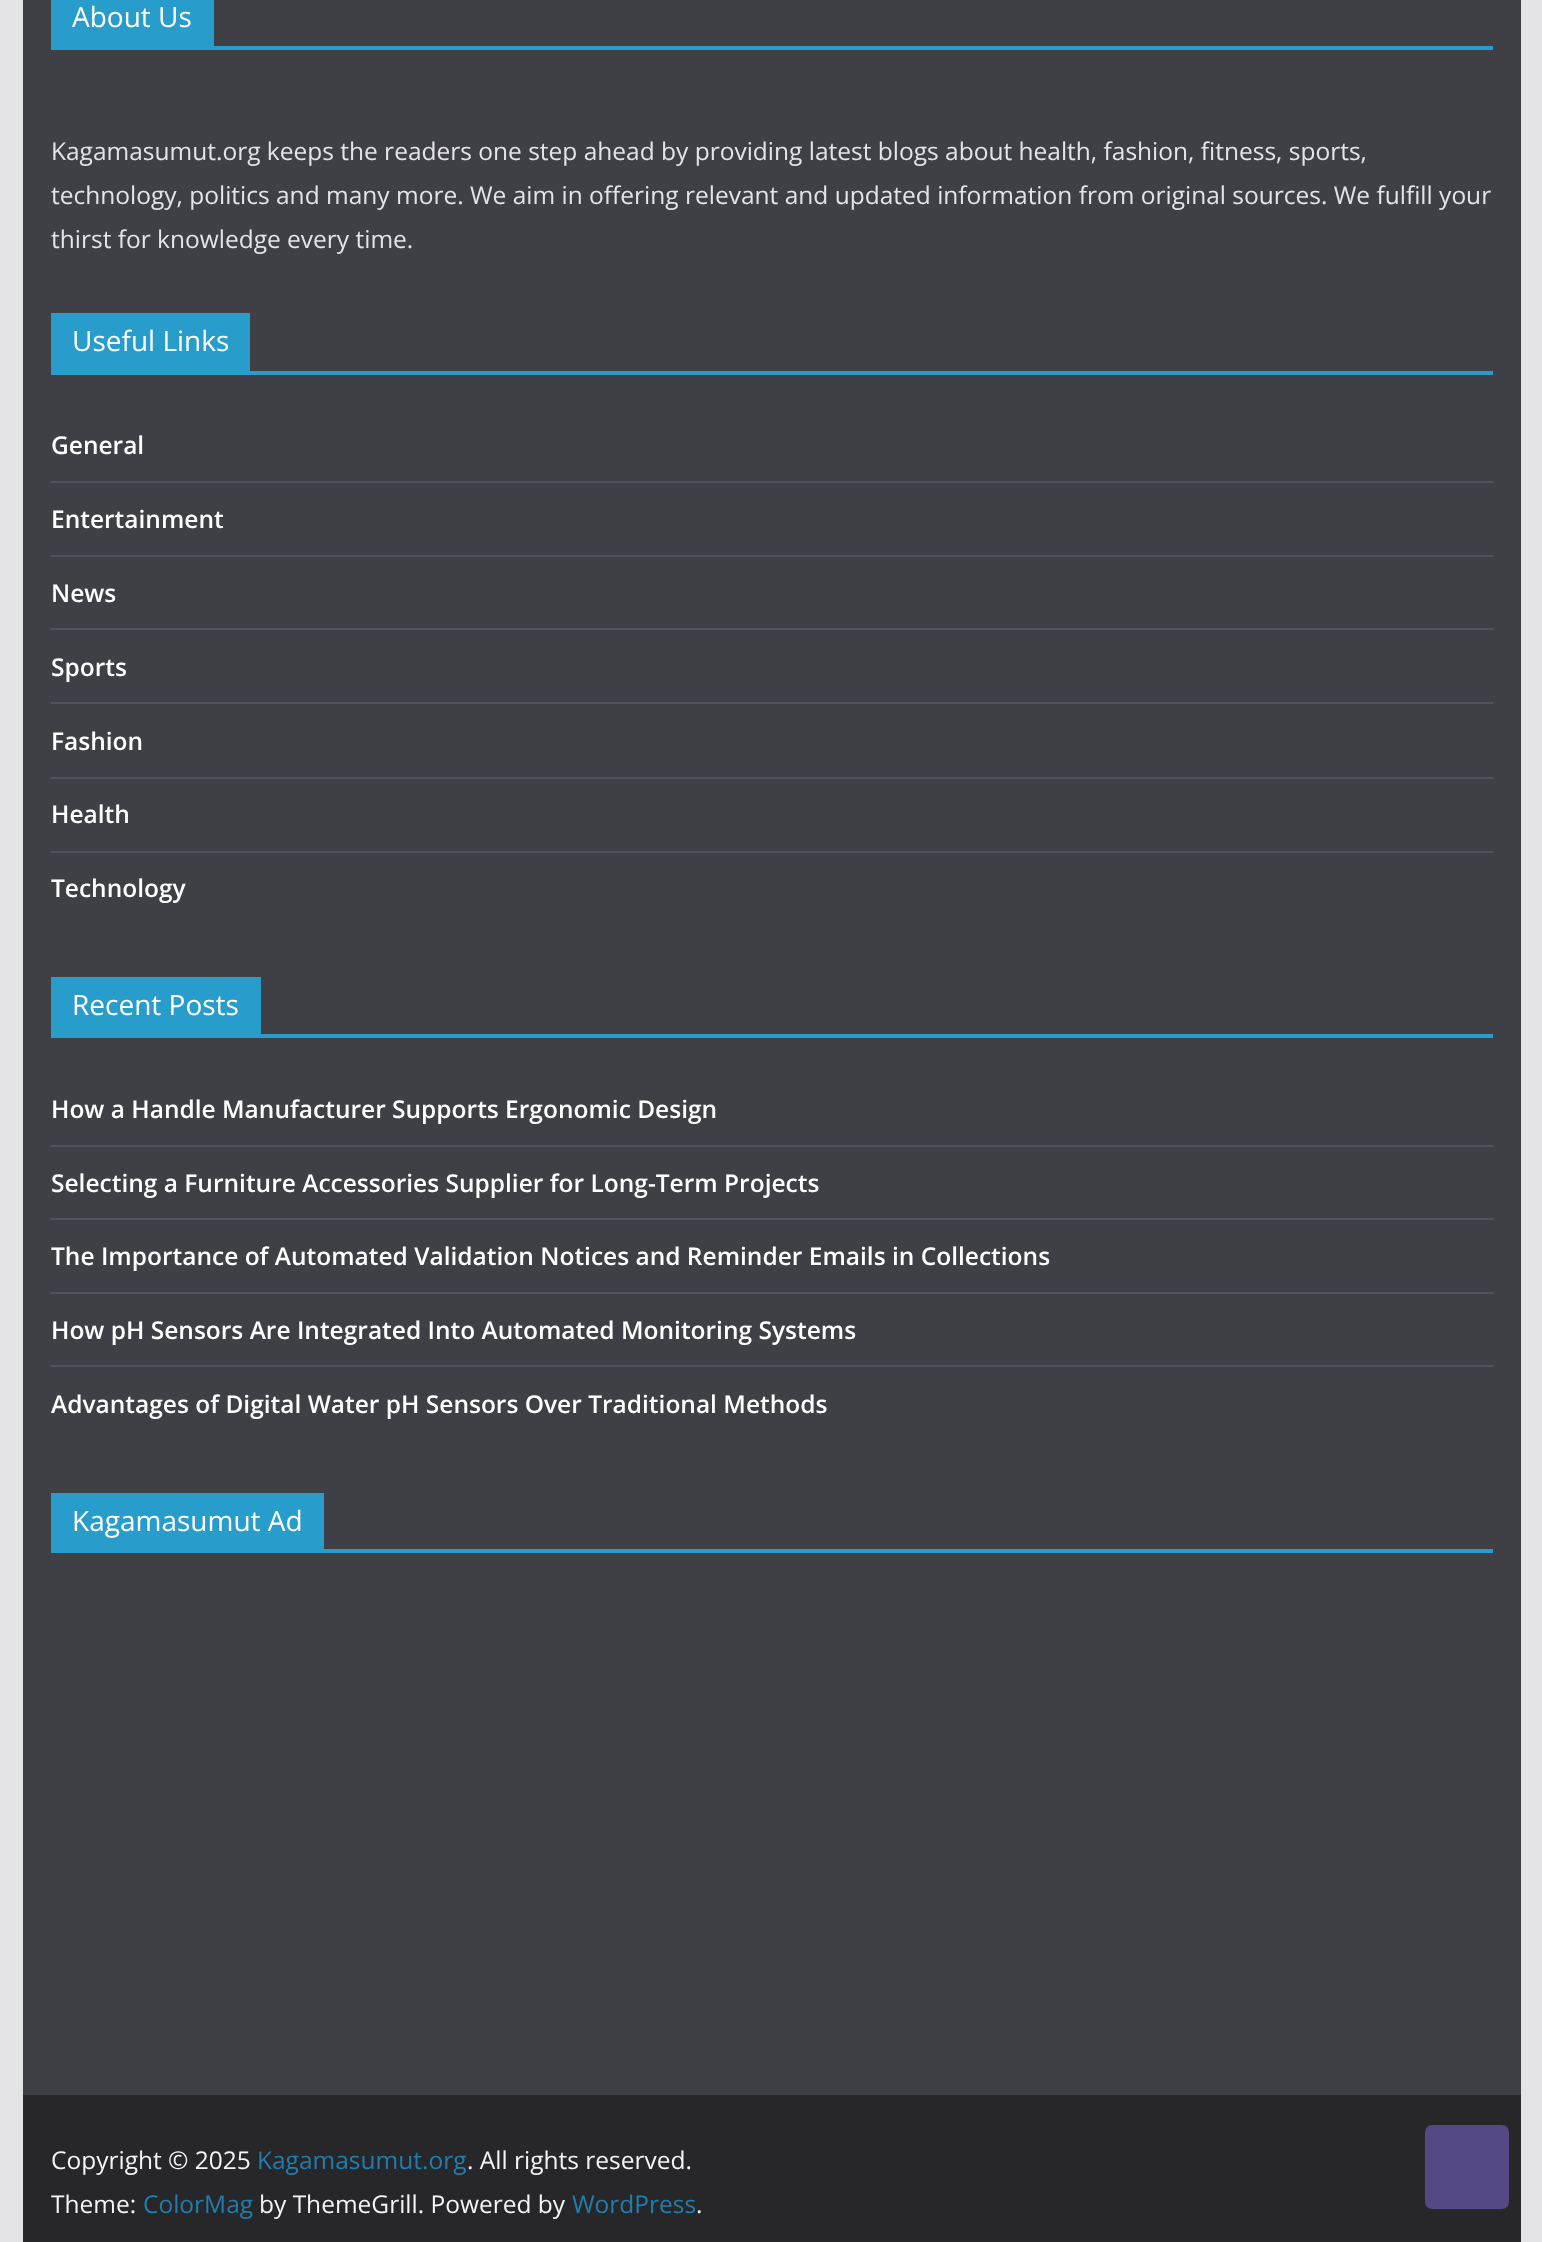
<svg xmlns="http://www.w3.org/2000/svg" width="1542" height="2242">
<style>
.a{font:28px Open Sans;fill:#fff}
.b{font:24.5px Open Sans;fill:#e4e4e7}
.c{font:600 24.5px Open Sans;fill:#fff}
.d{font:24.5px Open Sans;fill:#f4f4f5}
.e{font:24.5px Open Sans;fill:#207daf}
</style>
<rect width="100%" height="100%" fill="#e4e4e7"/>
<path fill="#3f3f46" d="M23 0h1498v2095H23z"/>
<path fill="#289dcc" d="M51 46h1442v4H51z"/>
<path fill="#289dcc" d="M51 0h163v46H51z"/>
<path fill="#289dcc" d="M51 371h1442v4H51z"/>
<path fill="#289dcc" d="M51 313h199v58H51z"/>
<path fill="#52525b" d="M51 481h1442v2H51z"/>
<path fill="#52525b" d="M51 555h1442v2H51z"/>
<path fill="#52525b" d="M51 628h1442v2H51z"/>
<path fill="#52525b" d="M51 702h1442v2H51z"/>
<path fill="#52525b" d="M51 777h1442v2H51z"/>
<path fill="#52525b" d="M51 851h1442v2H51z"/>
<path fill="#289dcc" d="M51 1034h1442v4H51z"/>
<path fill="#289dcc" d="M51 977h210v57H51z"/>
<path fill="#52525b" d="M51 1145h1442v2H51z"/>
<path fill="#52525b" d="M51 1218h1442v2H51z"/>
<path fill="#52525b" d="M51 1292h1442v2H51z"/>
<path fill="#52525b" d="M51 1365h1442v2H51z"/>
<path fill="#289dcc" d="M51 1549h1442v4H51z"/>
<path fill="#289dcc" d="M51 1493h273v56H51z"/>
<path fill="#27272a" d="M23 2095h1498v147H23z"/>
<rect fill="#554885" x="1425" y="2125" width="84" height="84" rx="7"/>
<text class="a" x="72" y="27">About Us</text>
<text class="b" x="51" y="160">Kagamasumut.org keeps the readers one step ahead by providing latest blogs about health, fashion, fitness, sports,</text>
<text class="b" x="51" y="204">technology, politics and many more. We aim in offering relevant and updated information from original sources. We fulfill your</text>
<text class="b" x="51" y="248">thirst for knowledge every time.</text>
<text class="a" x="72" y="351">Useful Links</text>
<text class="c" x="51" y="454">General</text>
<text class="c" x="51" y="528">Entertainment</text>
<text class="c" x="51" y="602">News</text>
<text class="c" x="51" y="676">Sports</text>
<text class="c" x="51" y="750">Fashion</text>
<text class="c" x="51" y="823">Health</text>
<text class="c" x="51" y="897">Technology</text>
<text class="a" x="72" y="1015">Recent Posts</text>
<text class="c" x="51" y="1118">How a Handle Manufacturer Supports Ergonomic Design</text>
<text class="c" x="51" y="1192">Selecting a Furniture Accessories Supplier for Long-Term Projects</text>
<text class="c" x="51" y="1265">The Importance of Automated Validation Notices and Reminder Emails in Collections</text>
<text class="c" x="51" y="1339">How pH Sensors Are Integrated Into Automated Monitoring Systems</text>
<text class="c" x="51" y="1413">Advantages of Digital Water pH Sensors Over Traditional Methods</text>
<text class="a" x="72" y="1531">Kagamasumut Ad</text>
<text class="d" x="51" y="2169">Copyright © 2025</text>
<text class="e" x="257" y="2169">Kagamasumut.org</text>
<text class="d" x="467" y="2169">. All rights reserved.</text>
<text class="d" x="51" y="2213">Theme:</text>
<text class="e" x="143" y="2213">ColorMag</text>
<text class="d" x="259" y="2213">by ThemeGrill. Powered by</text>
<text class="e" x="572" y="2213">WordPress</text>
<text class="d" x="696" y="2213">.</text>
</svg>
